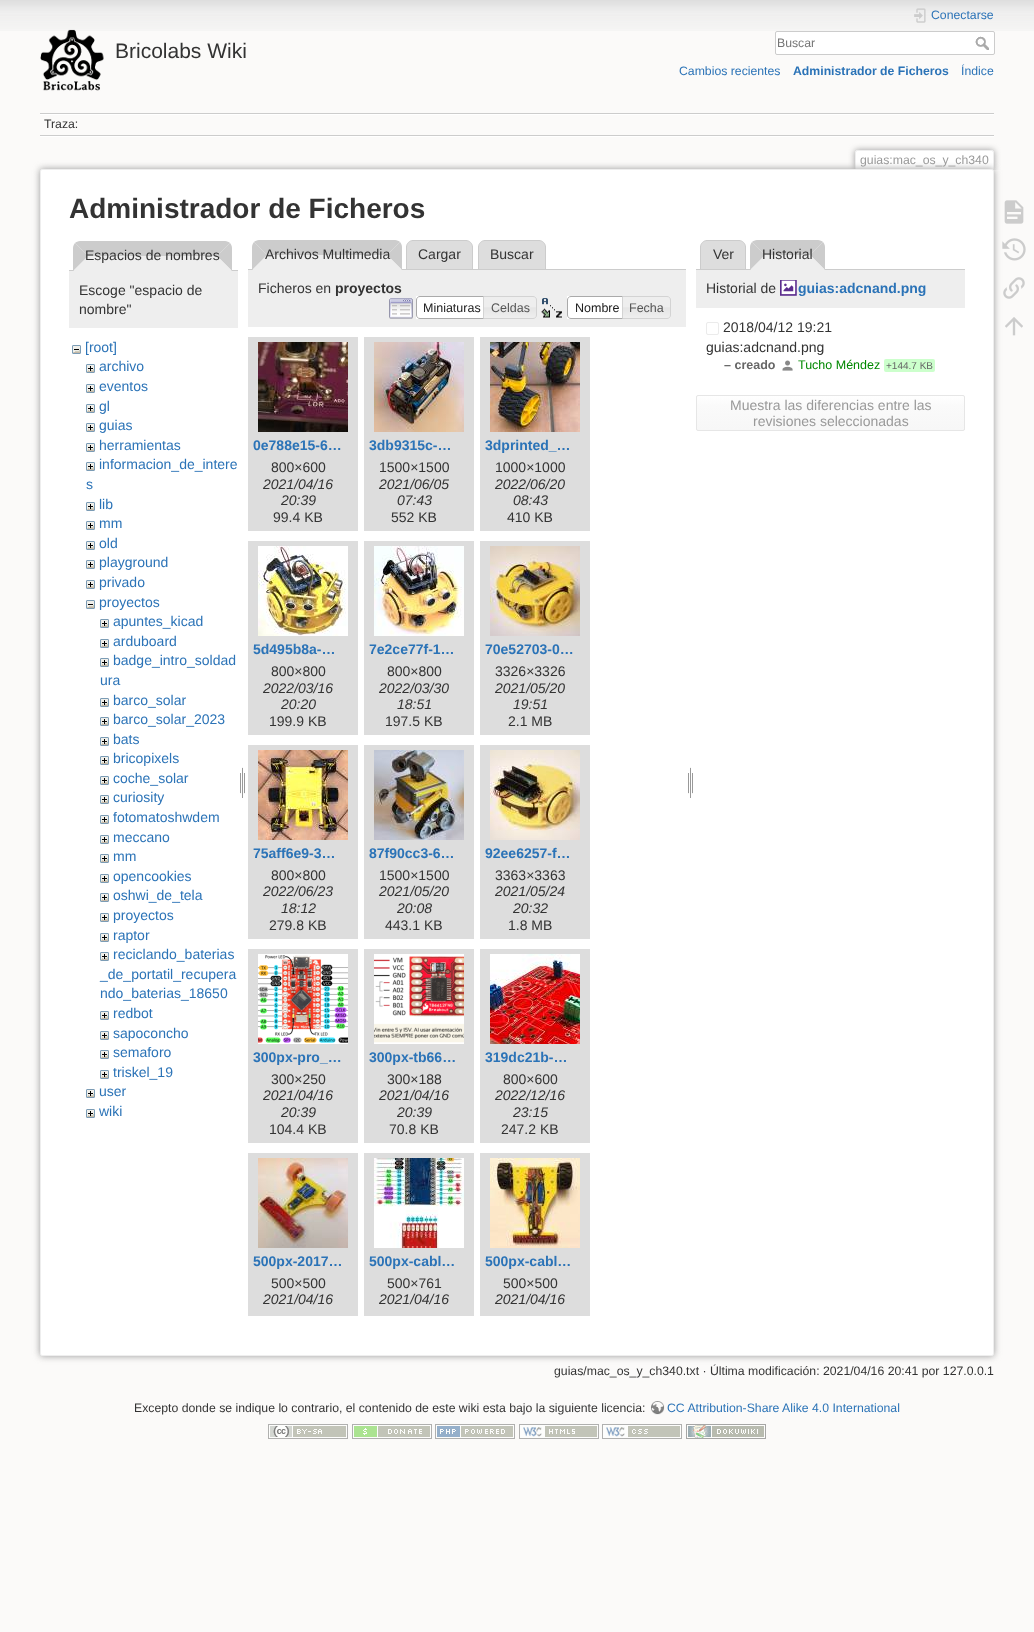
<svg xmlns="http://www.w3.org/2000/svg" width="1034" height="1632">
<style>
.a{font:21px Liberation Sans;fill:#333}
.b{font:12.25px Liberation Sans;fill:#2b73b7}
.c{font:12.25px Liberation Sans;fill:#757575}
.d{font:bold 12.25px Liberation Sans;fill:#2b73b7}
.e{font:12.25px Liberation Sans;fill:#333}
.f{font:12.25px Liberation Sans;fill:#999}
.g{font:bold 28px Liberation Sans;fill:#333}
.h{font:14px Liberation Sans;fill:#333}
.i{font:14px Liberation Sans;fill:#2b73b7}
.j{font:bold 14px Liberation Sans;fill:#333}
.k{font:12.5px Liberation Sans;fill:#212121}
.l{font:12.5px Liberation Sans;fill:#555}
.m{font:bold 14px Liberation Sans;fill:#2b73b7}
.n{font:italic 14px Liberation Sans;fill:#333}
.o{font:bold 12.5px Liberation Sans;fill:#666}
.p{font:12.5px Liberation Sans;fill:#080}
.q{font:10px Liberation Sans;fill:#666}
.r{font:14px Liberation Sans;fill:#999}
</style>
<defs>
<clipPath id="clip1"><path d="M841 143h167v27H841z"/></clipPath>
<clipPath id="clip2"><rect x="696" y="395" width="269" height="36" rx="2"/></clipPath>
<linearGradient id="g1" gradientUnits="userSpaceOnUse" x1="831" y1="396" x2="831" y2="430"><stop offset="0" stop-color="#fff"/><stop offset="0.3" stop-color="#fafafa"/><stop offset="0.99" stop-color="#f7f7f7"/><stop offset="0.99" stop-color="#e6e6e6"/></linearGradient>
</defs>
<rect width="100%" height="100%" fill="#fbfaf9"/>
<image href="1.png" x="0" y="0" width="1034" height="31"/>
<image href="2.png" x="40" y="29" width="64" height="62"/>
<image href="3.png" x="914" y="8" width="12" height="15"/>
<rect fill="#fff" stroke="#ccc" x="775.5" y="31.5" width="219" height="23" rx="1.5"/>
<image href="4.png" x="975" y="36" width="14" height="14"/>
<path fill="#ccc" d="M40 113h954v1H40z"/>
<path fill="#fff" d="M40 136h954v1H40z"/>
<path fill="#fff" d="M40 114h954v1H40z"/>
<path fill="#ccc" d="M40 135h954v1H40z"/>
<g clip-path="url(#clip1)">
<rect fill="#999" filter="blur(3px)" x="855" y="150" width="139" height="20" rx="2"/>
</g>
<path fill="#fff" d="M857 151h135c.5 0 1 .5 1 1v18h-137v-18c0-.5 .5-1 1-1z"/>
<path fill="#eee" d="M856 150h137v1H856z"/>
<path fill="#eee" d="M993 151h1v19H993z"/>
<path fill="#eee" d="M855 151h1v19H855z"/>
<rect fill="#999" filter="blur(3.5px)" x="40" y="169" width="954" height="1187" rx="2"/>
<rect fill="#fff" stroke="#eee" x="40.5" y="169.5" width="953" height="1186" rx="1.5"/>
<path fill="#ccc" d="M80 241h145c2 0 4 1 5 2l-13 13h-129l-13-13c1-1 3-2 5-2z"/>
<path fill="#ccc" d="M69 270h169v1H69z"/>
<path fill="#ccc" d="M230 243l-13 13l15 15v-23c0-2-1-4-2-5z"/>
<path fill="#eee" d="M232 271l-15-15h-129l-15 15z"/>
<path fill="#ccc" d="M73 271v-23c0-2 1-4 2-5l13 13z"/>
<path fill="#eee" d="M69 271h169v57H69z"/>
<image href="5.png" x="72" y="345" width="9" height="9"/>
<image href="6.png" x="86" y="364" width="9" height="9"/>
<image href="6.png" x="86" y="384" width="9" height="9"/>
<image href="6.png" x="86" y="404" width="9" height="9"/>
<image href="6.png" x="86" y="423" width="9" height="9"/>
<image href="6.png" x="86" y="443" width="9" height="9"/>
<image href="6.png" x="86" y="462" width="9" height="9"/>
<image href="6.png" x="86" y="502" width="9" height="9"/>
<image href="6.png" x="86" y="521" width="9" height="9"/>
<image href="6.png" x="86" y="541" width="9" height="9"/>
<image href="6.png" x="86" y="560" width="9" height="9"/>
<image href="6.png" x="86" y="580" width="9" height="9"/>
<image href="5.png" x="86" y="600" width="9" height="9"/>
<image href="6.png" x="100" y="619" width="9" height="9"/>
<image href="6.png" x="100" y="639" width="9" height="9"/>
<image href="6.png" x="100" y="658" width="9" height="9"/>
<image href="6.png" x="100" y="698" width="9" height="9"/>
<image href="6.png" x="100" y="717" width="9" height="9"/>
<image href="6.png" x="100" y="737" width="9" height="9"/>
<image href="6.png" x="100" y="756" width="9" height="9"/>
<image href="6.png" x="100" y="776" width="9" height="9"/>
<image href="6.png" x="100" y="795" width="9" height="9"/>
<image href="6.png" x="100" y="815" width="9" height="9"/>
<image href="6.png" x="100" y="835" width="9" height="9"/>
<image href="6.png" x="100" y="854" width="9" height="9"/>
<image href="6.png" x="100" y="874" width="9" height="9"/>
<image href="6.png" x="100" y="893" width="9" height="9"/>
<image href="6.png" x="100" y="913" width="9" height="9"/>
<image href="6.png" x="100" y="933" width="9" height="9"/>
<image href="6.png" x="100" y="952" width="9" height="9"/>
<image href="6.png" x="100" y="1011" width="9" height="9"/>
<image href="6.png" x="100" y="1031" width="9" height="9"/>
<image href="6.png" x="100" y="1050" width="9" height="9"/>
<image href="6.png" x="100" y="1070" width="9" height="9"/>
<image href="6.png" x="86" y="1089" width="9" height="9"/>
<image href="6.png" x="86" y="1109" width="9" height="9"/>
<image href="7.png" x="240" y="767" width="5" height="31"/>
<path fill="#ccc" d="M259 240h136c2 0 4 1 5 2l-13 13h-120l-13-13c1-1 3-2 5-2z"/>
<path fill="#ddd" stroke="#ccc" d="M413 240.5h53c3.5 0 6.5 3 6.5 6.5v22.5h-66v-22.5c0-3.5 3-6.5 6.5-6.5z"/>
<path fill="#ddd" stroke="#ccc" d="M485 240.5h54c3.5 0 6.5 3 6.5 6.5v22.5h-67v-22.5c0-3.5 3-6.5 6.5-6.5z"/>
<path fill="#ccc" d="M248 269h438v1H248z"/>
<path fill="#ccc" d="M400 242l-13 13l15 15v-23c0-2-1-4-2-5z"/>
<path fill="#eee" d="M402 270l-15-15h-120l-15 15z"/>
<path fill="#ccc" d="M252 270v-23c0-2 1-4 2-5l13 13z"/>
<path fill="#eee" d="M248 270h438v57H248z"/>
<image href="8.png" x="389" y="298" width="24" height="21"/>
<path fill="#fff" d="M416 296h67v23H416z"/>
<path fill="none" stroke="#aaa" d="M420 296.5h68.5v22h-68.5c-2 0-3.5-1.5-3.5-3.5v-15c0-2 1.5-3.5 3.5-3.5z"/>
<image href="9.png" x="484" y="296" width="53" height="23"/>
<path fill="none" stroke="#d3d3d3" d="M483.5 296.5h49.5c2 0 3.5 1.5 3.5 3.5v15c0 2-1.5 3.5-3.5 3.5h-49.5z"/>
<image href="10.png" x="541" y="298" width="21" height="20"/>
<path fill="#fff" d="M567 296h55v23H567z"/>
<path fill="none" stroke="#aaa" d="M571 296.5h55.5v22h-55.5c-2 0-3.5-1.5-3.5-3.5v-15c0-2 1.5-3.5 3.5-3.5z"/>
<image href="11.png" x="623" y="296" width="48" height="23"/>
<path fill="none" stroke="#d3d3d3" d="M622.5 296.5h44.5c2 0 3.5 1.5 3.5 3.5v15c0 2-1.5 3.5-3.5 3.5h-44.5z"/>
<path fill="#ddd" d="M248 337h110v194H248z"/>
<image href="12.png" x="258" y="342" width="90" height="90"/>
<path fill="#ddd" d="M364 337h110v194H364z"/>
<image href="13.png" x="374" y="342" width="90" height="90"/>
<path fill="#ddd" d="M480 337h110v194H480z"/>
<image href="14.png" x="490" y="342" width="90" height="90"/>
<path fill="#ddd" d="M248 541h110v194H248z"/>
<image href="15.png" x="258" y="546" width="90" height="90"/>
<path fill="#ddd" d="M364 541h110v194H364z"/>
<image href="16.png" x="374" y="546" width="90" height="90"/>
<path fill="#ddd" d="M480 541h110v194H480z"/>
<image href="17.png" x="490" y="546" width="90" height="90"/>
<path fill="#ddd" d="M248 745h110v194H248z"/>
<image href="18.png" x="258" y="750" width="90" height="90"/>
<path fill="#ddd" d="M364 745h110v194H364z"/>
<image href="19.png" x="374" y="750" width="90" height="90"/>
<path fill="#ddd" d="M480 745h110v194H480z"/>
<image href="20.png" x="490" y="750" width="90" height="90"/>
<path fill="#ddd" d="M248 949h110v194H248z"/>
<image href="21.png" x="258" y="954" width="90" height="90"/>
<path fill="#ddd" d="M364 949h110v194H364z"/>
<image href="22.png" x="374" y="954" width="90" height="90"/>
<path fill="#ddd" d="M480 949h110v194H480z"/>
<image href="23.png" x="490" y="954" width="90" height="90"/>
<path fill="#ddd" d="M248 1153h110v163H248z"/>
<image href="24.png" x="258" y="1158" width="90" height="90"/>
<path fill="#ddd" d="M364 1153h110v163H364z"/>
<image href="25.png" x="374" y="1158" width="90" height="90"/>
<path fill="#ddd" d="M480 1153h110v163H480z"/>
<image href="26.png" x="490" y="1158" width="90" height="90"/>
<image href="7.png" x="688" y="767" width="5" height="31"/>
<path fill="#ddd" stroke="#ccc" d="M707 240.5h32c3.5 0 6.5 3 6.5 6.5v22.5h-45v-22.5c0-3.5 3-6.5 6.5-6.5z"/>
<path fill="#ccc" d="M757 240h61c2 0 4 1 5 2l-13 13h-45l-13-13c1-1 3-2 5-2z"/>
<path fill="#ccc" d="M696 269h269v1H696z"/>
<path fill="#ccc" d="M823 242l-13 13l15 15v-23c0-2-1-4-2-5z"/>
<path fill="#eee" d="M825 270l-15-15h-45l-15 15z"/>
<path fill="#ccc" d="M750 270v-23c0-2 1-4 2-5l13 13z"/>
<path fill="#eee" d="M696 270h269v38H696z"/>
<image href="27.png" x="780" y="280" width="17" height="16"/>
<rect fill="none" stroke="#ebebeb" x="706.5" y="322.5" width="12" height="12" rx="1.5"/>
<image href="28.png" x="782" y="360" width="11" height="11"/>
<rect fill="#cfc" x="884" y="359" width="51" height="13" rx="2"/>
<g clip-path="url(#clip2)">
<path fill="url(#g1)" d="M696 396h269v34H696z"/>
</g>
<rect fill="none" stroke="#e6e6e6" x="696.5" y="395.5" width="268" height="35" rx="1.5"/>
<image href="29.png" x="1004" y="200" width="20" height="24"/>
<image href="30.png" x="1002" y="238" width="24" height="23"/>
<image href="31.png" x="1003" y="277" width="22" height="22"/>
<image href="32.png" x="1005" y="317" width="18" height="19"/>
<image href="33.png" x="651" y="1401" width="14" height="14"/>
<image href="34.png" x="268" y="1424" width="80" height="15"/>
<image href="35.png" x="352" y="1424" width="80" height="15"/>
<image href="36.png" x="435" y="1424" width="80" height="15"/>
<image href="37.png" x="519" y="1424" width="80" height="15"/>
<image href="38.png" x="602" y="1424" width="80" height="15"/>
<image href="39.png" x="686" y="1424" width="80" height="15"/>
<text class="a" x="115" y="58">Bricolabs Wiki</text>
<text class="b" x="931" y="19">Conectarse</text>
<text class="c" x="777" y="47">Buscar</text>
<text class="b" x="679" y="75">Cambios recientes</text>
<text class="d" x="793" y="75">Administrador de Ficheros</text>
<text class="b" x="961" y="75">Índice</text>
<text class="e" x="44" y="128">Traza:</text>
<text class="f" x="860" y="164">guias:mac_os_y_ch340</text>
<text class="g" x="69" y="218">Administrador de Ficheros</text>
<text class="h" x="85" y="260">Espacios de nombres</text>
<text class="h" x="79" y="295">Escoge "espacio de</text>
<text class="h" x="79" y="314">nombre"</text>
<text class="i" x="85" y="352">[root]</text>
<text class="i" x="99" y="371">archivo</text>
<text class="i" x="99" y="391">eventos</text>
<text class="i" x="99" y="411">gl</text>
<text class="i" x="99" y="430">guias</text>
<text class="i" x="99" y="450">herramientas</text>
<text class="i" x="99" y="469">informacion_de_intere</text>
<text class="i" x="86" y="489">s</text>
<text class="i" x="99" y="509">lib</text>
<text class="i" x="99" y="528">mm</text>
<text class="i" x="99" y="548">old</text>
<text class="i" x="99" y="567">playground</text>
<text class="i" x="99" y="587">privado</text>
<text class="i" x="99" y="607">proyectos</text>
<text class="i" x="113" y="626">apuntes_kicad</text>
<text class="i" x="113" y="646">arduboard</text>
<text class="i" x="113" y="665">badge_intro_soldad</text>
<text class="i" x="100" y="685">ura</text>
<text class="i" x="113" y="705">barco_solar</text>
<text class="i" x="113" y="724">barco_solar_2023</text>
<text class="i" x="113" y="744">bats</text>
<text class="i" x="113" y="763">bricopixels</text>
<text class="i" x="113" y="783">coche_solar</text>
<text class="i" x="113" y="802">curiosity</text>
<text class="i" x="113" y="822">fotomatoshwdem</text>
<text class="i" x="113" y="842">meccano</text>
<text class="i" x="113" y="861">mm</text>
<text class="i" x="113" y="881">opencookies</text>
<text class="i" x="113" y="900">oshwi_de_tela</text>
<text class="i" x="113" y="920">proyectos</text>
<text class="i" x="113" y="940">raptor</text>
<text class="i" x="113" y="959">reciclando_baterias</text>
<text class="i" x="100" y="979">_de_portatil_recupera</text>
<text class="i" x="100" y="998">ndo_baterias_18650</text>
<text class="i" x="113" y="1018">redbot</text>
<text class="i" x="113" y="1038">sapoconcho</text>
<text class="i" x="113" y="1057">semaforo</text>
<text class="i" x="113" y="1077">triskel_19</text>
<text class="i" x="99" y="1096">user</text>
<text class="i" x="99" y="1116">wiki</text>
<text class="h" x="265" y="259">Archivos Multimedia</text>
<text class="h" x="418" y="259">Cargar</text>
<text class="h" x="490" y="259">Buscar</text>
<text class="h" x="258" y="293">Ficheros en</text>
<text class="j" x="335" y="293">proyectos</text>
<text class="k" x="423" y="312">Miniaturas</text>
<text class="l" x="491" y="312">Celdas</text>
<text class="k" x="575" y="312">Nombre</text>
<text class="l" x="629" y="312">Fecha</text>
<text class="m" x="253" y="450">0e788e15-6…</text>
<text class="h" x="271" y="472">800×600</text>
<text class="n" x="263" y="489">2021/04/16</text>
<text class="n" x="281" y="505">20:39</text>
<text class="h" x="273" y="522">99.4 KB</text>
<text class="m" x="369" y="450">3db9315c-…</text>
<text class="h" x="379" y="472">1500×1500</text>
<text class="n" x="379" y="489">2021/06/05</text>
<text class="n" x="397" y="505">07:43</text>
<text class="h" x="391" y="522">552 KB</text>
<text class="m" x="485" y="450">3dprinted_…</text>
<text class="h" x="495" y="472">1000×1000</text>
<text class="n" x="495" y="489">2022/06/20</text>
<text class="n" x="513" y="505">08:43</text>
<text class="h" x="507" y="522">410 KB</text>
<text class="m" x="253" y="654">5d495b8a-…</text>
<text class="h" x="271" y="676">800×800</text>
<text class="n" x="263" y="693">2022/03/16</text>
<text class="n" x="281" y="709">20:20</text>
<text class="h" x="269" y="726">199.9 KB</text>
<text class="m" x="369" y="654">7e2ce77f-1…</text>
<text class="h" x="387" y="676">800×800</text>
<text class="n" x="379" y="693">2022/03/30</text>
<text class="n" x="397" y="709">18:51</text>
<text class="h" x="385" y="726">197.5 KB</text>
<text class="m" x="485" y="654">70e52703-0…</text>
<text class="h" x="495" y="676">3326×3326</text>
<text class="n" x="495" y="693">2021/05/20</text>
<text class="n" x="513" y="709">19:51</text>
<text class="h" x="508" y="726">2.1 MB</text>
<text class="m" x="253" y="858">75aff6e9-3…</text>
<text class="h" x="271" y="880">800×800</text>
<text class="n" x="263" y="896">2022/06/23</text>
<text class="n" x="281" y="913">18:12</text>
<text class="h" x="269" y="930">279.8 KB</text>
<text class="m" x="369" y="858">87f90cc3-6…</text>
<text class="h" x="379" y="880">1500×1500</text>
<text class="n" x="379" y="896">2021/05/20</text>
<text class="n" x="397" y="913">20:08</text>
<text class="h" x="385" y="930">443.1 KB</text>
<text class="m" x="485" y="858">92ee6257-f…</text>
<text class="h" x="495" y="880">3363×3363</text>
<text class="n" x="495" y="896">2021/05/24</text>
<text class="n" x="513" y="913">20:32</text>
<text class="h" x="508" y="930">1.8 MB</text>
<text class="m" x="253" y="1062">300px-pro_…</text>
<text class="h" x="271" y="1084">300×250</text>
<text class="n" x="263" y="1100">2021/04/16</text>
<text class="n" x="281" y="1117">20:39</text>
<text class="h" x="269" y="1134">104.4 KB</text>
<text class="m" x="369" y="1062">300px-tb66…</text>
<text class="h" x="387" y="1084">300×188</text>
<text class="n" x="379" y="1100">2021/04/16</text>
<text class="n" x="397" y="1117">20:39</text>
<text class="h" x="389" y="1134">70.8 KB</text>
<text class="m" x="485" y="1062">319dc21b-…</text>
<text class="h" x="503" y="1084">800×600</text>
<text class="n" x="495" y="1100">2022/12/16</text>
<text class="n" x="513" y="1117">23:15</text>
<text class="h" x="501" y="1134">247.2 KB</text>
<text class="m" x="253" y="1266">500px-2017…</text>
<text class="h" x="271" y="1288">500×500</text>
<text class="n" x="263" y="1304">2021/04/16</text>
<text class="m" x="369" y="1266">500px-cabl…</text>
<text class="h" x="387" y="1288">500×761</text>
<text class="n" x="379" y="1304">2021/04/16</text>
<text class="m" x="485" y="1266">500px-cabl…</text>
<text class="h" x="503" y="1288">500×500</text>
<text class="n" x="495" y="1304">2021/04/16</text>
<text class="h" x="713" y="259">Ver</text>
<text class="h" x="762" y="259">Historial</text>
<text class="h" x="706" y="293">Historial de</text>
<text class="m" x="798" y="293">guias:adcnand.png</text>
<text class="h" x="723" y="332">2018/04/12 19:21</text>
<text class="h" x="706" y="352">guias:adcnand.png</text>
<text class="o" x="724" y="369">– creado</text>
<text class="p" x="798" y="369">Tucho Méndez</text>
<text class="q" x="886" y="369">+144.7 KB</text>
<text class="r" x="730" y="410">Muestra las diferencias entre las</text>
<text class="r" x="753" y="426">revisiones seleccionadas</text>
<text class="e" x="554" y="1375">guias/mac_os_y_ch340.txt · Última modificación: 2021/04/16 20:41 por 127.0.0.1</text>
<text class="e" x="134" y="1412">Excepto donde se indique lo contrario, el contenido de este wiki esta bajo la siguiente licencia:</text>
<text class="b" x="667" y="1412">CC Attribution-Share Alike 4.0 International</text>
</svg>
